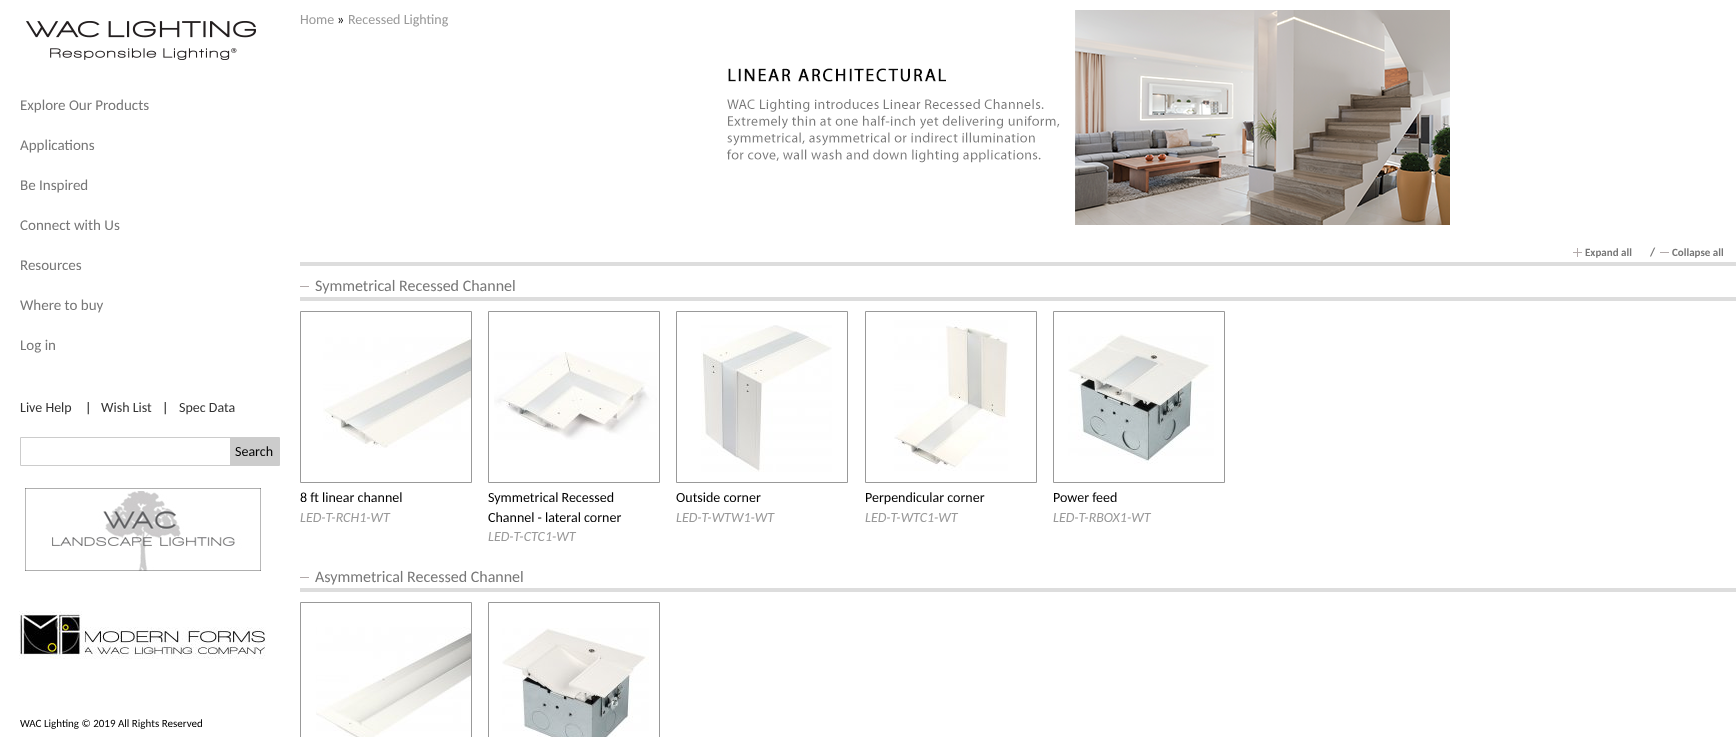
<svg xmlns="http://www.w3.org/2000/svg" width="1736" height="737">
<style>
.a{font:15px Carlito;fill:#777}
.b{font:14px Carlito;fill:#333}
.c{font:14px Carlito;fill:#000}
.d{font:11px Carlito;fill:#000}
.e{font:14px Carlito;fill:#999}
.f{font:bold 11px Carlito;fill:#777}
.g{font:bold 12px Carlito;fill:#777}
.h{font:16px Carlito;fill:#777}
.i{font:italic 14px Carlito;fill:#999}
</style>
<rect width="100%" height="100%" fill="#fff"/>
<image href="1.png" x="26" y="21" width="230" height="39"/>
<path fill="none" stroke="#ccc" d="M20.5 437.5h259v28H20.5z"/>
<path fill="#ccc" d="M230 438h49v27H230z"/>
<image href="2.png" x="25" y="488" width="236" height="83"/>
<image href="3.png" x="19" y="611" width="247" height="48"/>
<image href="4.png" x="727" y="10" width="723" height="215"/>
<image href="5.png" x="1573" y="248" width="9" height="9"/>
<path fill="#b2aaaa" d="M1660 252h9v1H1660z"/>
<path fill="#ddd" d="M300 262h1436v4H300z"/>
<path fill="#b2aaaa" d="M300 286h9v1H300z"/>
<path fill="#ddd" d="M300 297h1436v4H300z"/>
<path fill="none" stroke="#999" d="M300.5 311.5h171v171H300.5z"/>
<image href="6.png" x="323" y="337" width="148" height="111"/>
<path fill="none" stroke="#999" d="M488.5 311.5h171v171H488.5z"/>
<image href="7.png" x="494" y="352" width="163" height="88"/>
<path fill="none" stroke="#999" d="M676.5 311.5h171v171H676.5z"/>
<image href="8.png" x="701" y="325" width="131" height="147"/>
<path fill="none" stroke="#999" d="M865.5 311.5h171v171H865.5z"/>
<image href="9.png" x="894" y="320" width="114" height="151"/>
<path fill="none" stroke="#999" d="M1053.5 311.5h171v171H1053.5z"/>
<image href="10.png" x="1068" y="334" width="146" height="130"/>
<path fill="#b2aaaa" d="M300 577h9v1H300z"/>
<path fill="#ddd" d="M300 588h1436v4H300z"/>
<path fill="none" stroke="#999" d="M300.5 602.5h171v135H300.5z"/>
<image href="11.png" x="316" y="627" width="155" height="110"/>
<path fill="none" stroke="#999" d="M488.5 602.5h171v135H488.5z"/>
<image href="12.png" x="502" y="628" width="147" height="109"/>
<text class="a" x="20" y="110">Explore Our Products</text>
<text class="a" x="20" y="150">Applications</text>
<text class="a" x="20" y="190">Be Inspired</text>
<text class="a" x="20" y="230">Connect with Us</text>
<text class="a" x="20" y="270">Resources</text>
<text class="a" x="20" y="310">Where to buy</text>
<text class="a" x="20" y="350">Log in</text>
<text class="b" x="20" y="412">Live Help</text>
<text class="c" x="85" y="412">|</text>
<text class="b" x="101" y="412">Wish List</text>
<text class="c" x="162" y="412">|</text>
<text class="b" x="179" y="412">Spec Data</text>
<text class="c" x="235" y="456">Search</text>
<text class="d" x="20" y="727">WAC Lighting © 2019 All Rights Reserved</text>
<text class="e" x="300" y="24">Home</text>
<text class="c" x="337" y="24">»</text>
<text class="e" x="348" y="24">Recessed Lighting</text>
<text class="f" x="1585" y="256">Expand all</text>
<text class="g" x="1650" y="256">/</text>
<text class="f" x="1672" y="256">Collapse all</text>
<text class="h" x="315" y="291">Symmetrical Recessed Channel</text>
<text class="c" x="300" y="502">8 ft linear channel</text>
<text class="i" x="300" y="522">LED-T-RCH1-WT</text>
<text class="c" x="488" y="502">Symmetrical Recessed</text>
<text class="c" x="488" y="522">Channel - lateral corner</text>
<text class="i" x="488" y="541">LED-T-CTC1-WT</text>
<text class="c" x="676" y="502">Outside corner</text>
<text class="i" x="676" y="522">LED-T-WTW1-WT</text>
<text class="c" x="865" y="502">Perpendicular corner</text>
<text class="i" x="865" y="522">LED-T-WTC1-WT</text>
<text class="c" x="1053" y="502">Power feed</text>
<text class="i" x="1053" y="522">LED-T-RBOX1-WT</text>
<text class="h" x="315" y="582">Asymmetrical Recessed Channel</text>
</svg>
